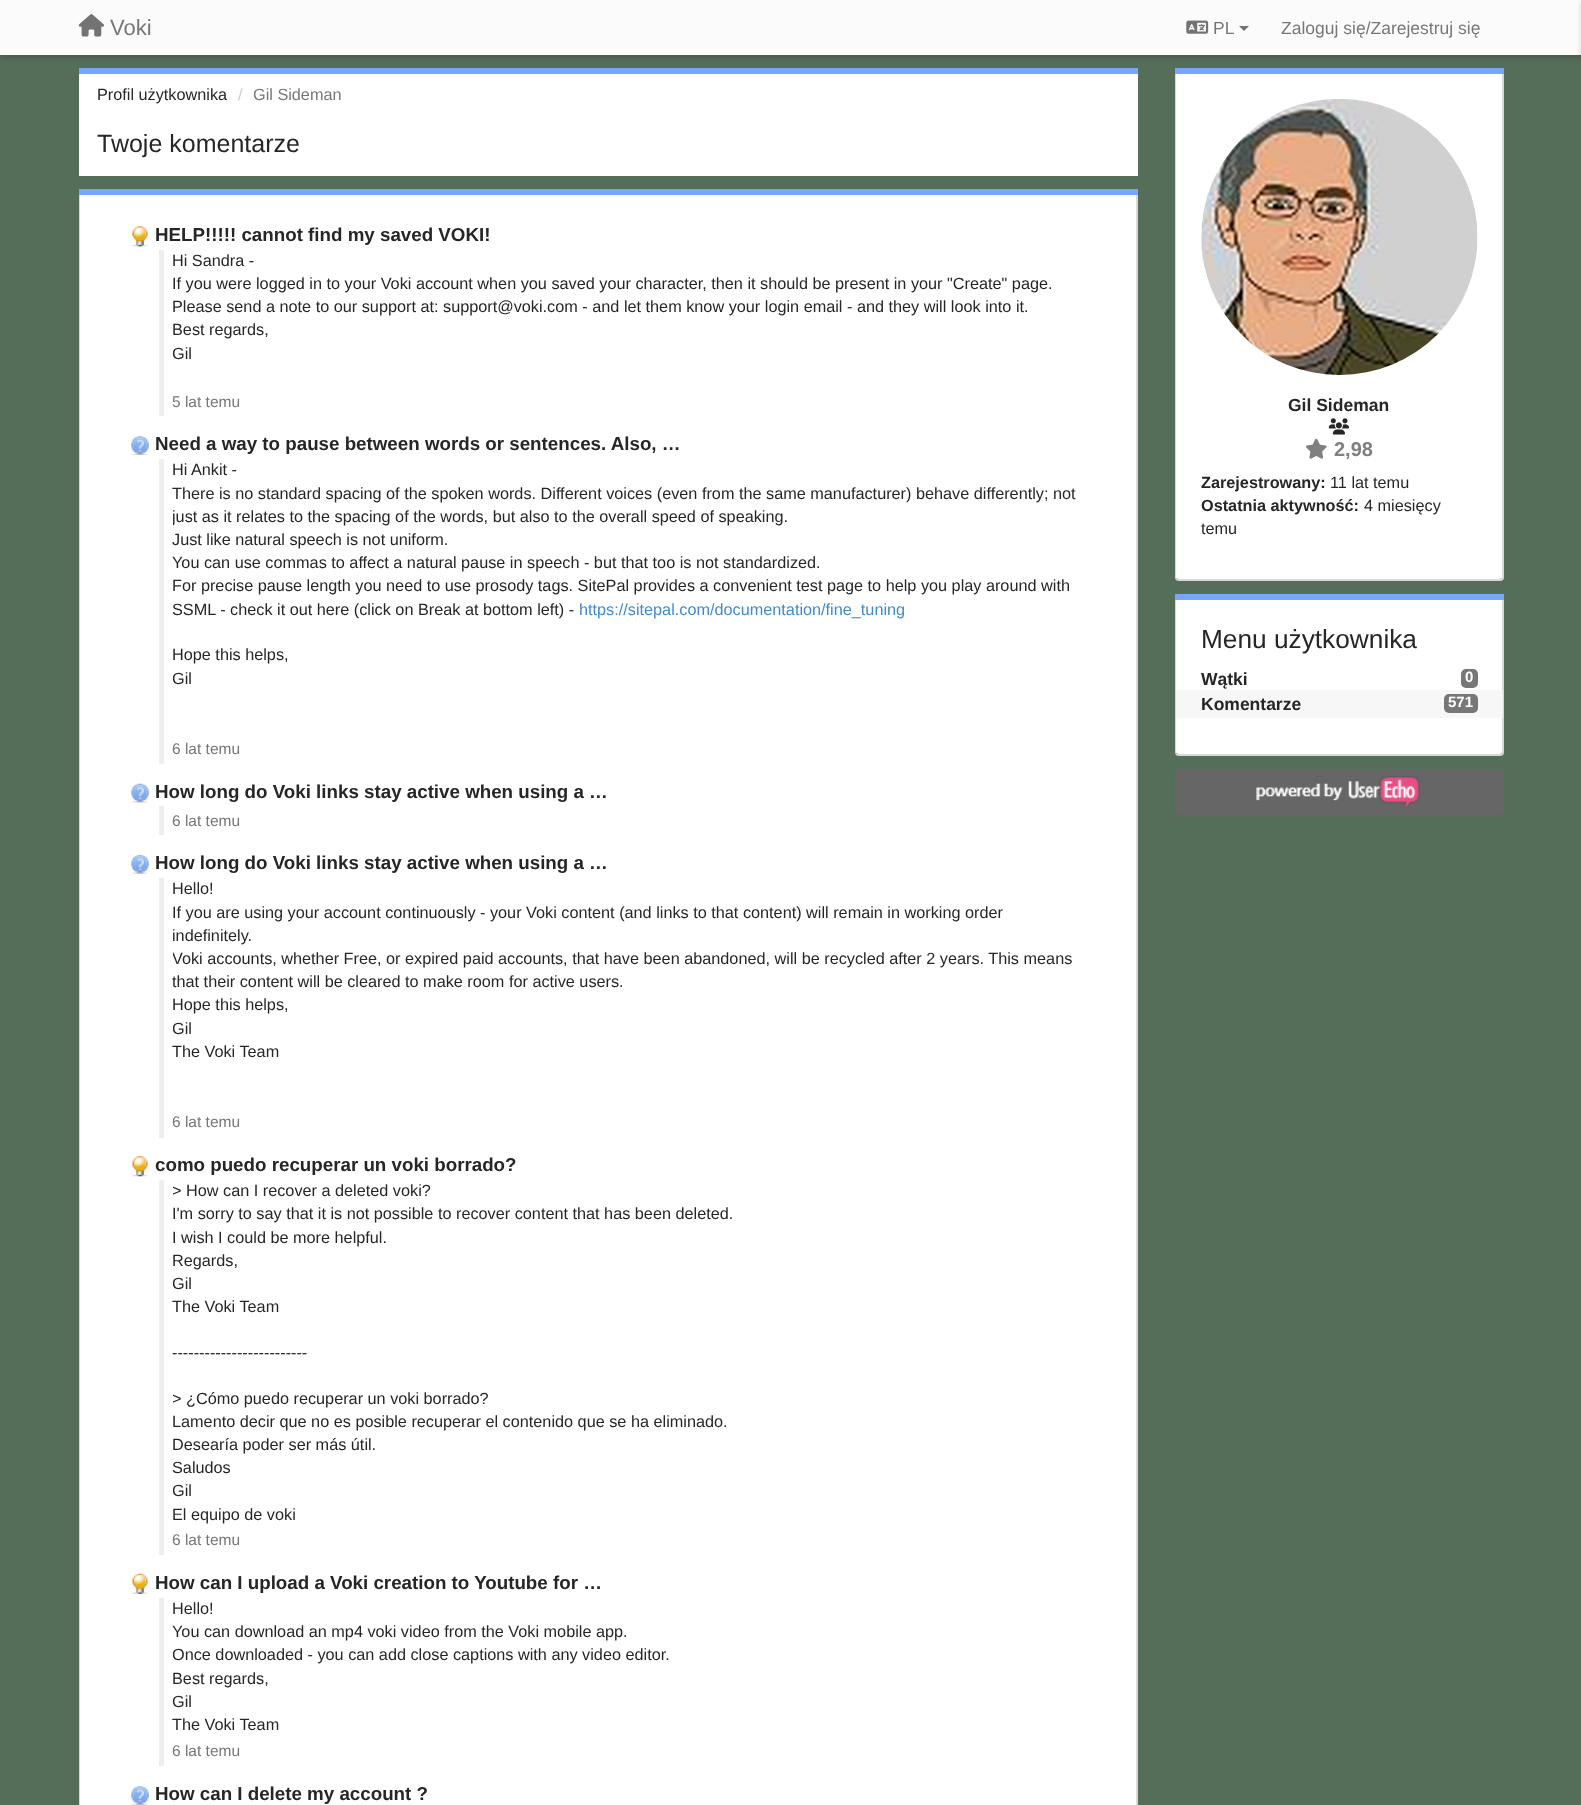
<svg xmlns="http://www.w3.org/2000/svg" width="1581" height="1805">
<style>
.a{font:22px Liberation Sans;fill:#777}
.b{font:17.5px Liberation Sans;fill:#777}
.c{font:16.25px Liberation Sans;fill:#262626}
.d{font:16.25px Liberation Sans;fill:#ccc}
.e{font:16.25px Liberation Sans;fill:#777}
.f{font:25px Liberation Sans;fill:#262626}
.g{font:bold 18.75px Liberation Sans;fill:#262626}
.h{font:15.5px Liberation Sans;fill:#777}
.i{font:16.25px Liberation Sans;fill:#428bca}
.j{font:bold 17.5px Liberation Sans;fill:#262626}
.k{font:bold 20px Liberation Sans;fill:#808080}
.l{font:bold 16.25px Liberation Sans;fill:#262626}
.m{font:26.25px Liberation Sans;fill:#262626}
.n{font:bold 15px Liberation Sans;fill:#fff}
</style>
<defs>
<clipPath id="clip1"><path d="M173 250h913v138H173z"/></clipPath>
<clipPath id="clip2"><path d="M173 459h913v276H173z"/></clipPath>
<clipPath id="clip3"><path d="M173 878h913v231H173z"/></clipPath>
<clipPath id="clip4"><path d="M173 1180h913v346H173z"/></clipPath>
<clipPath id="clip5"><path d="M173 1598h913v140H173z"/></clipPath>
</defs>
<rect width="100%" height="100%" fill="#556e59"/>
<path fill="#00000026" filter="blur(2.5px)" d="M0 3h1581v55H0z"/>
<path fill="#fbfbfb" d="M0 0h1581v55H0z"/>
<image href="1.png" x="78" y="14" width="26" height="23"/>
<image href="2.png" x="1186" y="20" width="23" height="14"/>
<path fill="#737373" d="M1239 26h10l-5 5z"/>
<path fill="#00000026" filter="blur(2.5px)" d="M1581 3h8v55H1581z"/>
<path fill="#fff" d="M79 74h1059v102H79z"/>
<path fill="#76a7fa" d="M79 68h1059v6H79z"/>
<path fill="#76a7fa" d="M79 189h1059v6H79z"/>
<path fill="#fff" d="M80 195h1056v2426c0 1-1 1-2 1h-1052c-1 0-2 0-2-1z"/>
<path fill="#d8d8d8" fill-rule="evenodd" d="M79 195h1059v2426c0 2-2 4-4 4h-1052c-2 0-3-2-3-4zm1 0h1056v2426c0 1-1 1-2 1h-1052c-1 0-2 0-2-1z"/>
<image href="3.png" x="131" y="226" width="18" height="21"/>
<path fill="#eee" d="M159 250h5v166H159z"/>
<image href="4.png" x="131" y="436" width="18" height="19"/>
<path fill="#eee" d="M159 459h5v305H159z"/>
<image href="5.png" x="131" y="783" width="18" height="20"/>
<path fill="#eee" d="M159 806h5v29H159z"/>
<image href="6.png" x="131" y="854" width="18" height="20"/>
<path fill="#eee" d="M159 878h5v260H159z"/>
<image href="3.png" x="131" y="1156" width="18" height="21"/>
<path fill="#eee" d="M159 1180h5v375H159z"/>
<image href="7.png" x="131" y="1573" width="18" height="21"/>
<path fill="#eee" d="M159 1598h5v168H159z"/>
<image href="4.png" x="131" y="1786" width="18" height="19"/>
<path fill="#76a7fa" d="M1175 68h329v6H1175z"/>
<path fill="#fff" d="M1176 74h326v504c0 0-1 1-2 1h-321c-2 0-3-1-3-1z"/>
<path fill="#d8d8d8" fill-rule="evenodd" d="M1175 74h329v504c0 2-2 3-4 3h-321c-2 0-4-1-4-3zm1 0h326v504c0 0-1 1-2 1h-321c-2 0-3-1-3-1z"/>
<image href="8.png" x="1201" y="99" width="277" height="276"/>
<image href="9.png" x="1328" y="418" width="21" height="17"/>
<image href="10.png" x="1306" y="438" width="21" height="21"/>
<path fill="#76a7fa" d="M1175 594h329v6H1175z"/>
<path fill="#fff" d="M1176 600h326v152c0 1-1 2-2 2h-321c-2 0-3-1-3-2z"/>
<path fill="#d8d8d8" fill-rule="evenodd" d="M1175 600h329v152c0 3-2 4-4 4h-321c-2 0-4-1-4-4zm1 0h326v152c0 1-1 2-2 2h-321c-2 0-3-1-3-2z"/>
<rect fill="#777" x="1461" y="669" width="17" height="19" rx="5"/>
<path fill="#f5f5f5cc" d="M1176 690h327v28H1176z"/>
<rect fill="#777" x="1444" y="694" width="34" height="19" rx="5"/>
<path fill="#666" d="M1175 769h329v42c0 2-2 4-4 4h-321c-2 0-4-2-4-4z"/>
<image href="11.png" x="1256" y="776" width="164" height="32"/>
<text class="a" x="110" y="35">Voki</text>
<text class="b" x="1213" y="34">PL</text>
<text class="b" x="1281" y="34">Zaloguj się/Zarejestruj się</text>
<text class="c" x="97" y="100">Profil użytkownika</text>
<text class="d" x="238" y="100">/</text>
<text class="e" x="253" y="100">Gil Sideman</text>
<text class="f" x="97" y="152">Twoje komentarze</text>
<text class="g" x="155" y="241">HELP!!!!! cannot find my saved VOKI!</text>
<text class="c" x="172" y="266">Hi Sandra -</text>
<text class="c" x="172" y="289">If you were logged in to your Voki account when you saved your character, then it should be present in your "Create" page.</text>
<text class="c" x="172" y="312">Please send a note to our support at: support@voki.com - and let them know your login email - and they will look into it.</text>
<text class="c" x="172" y="335">Best regards,</text>
<g clip-path="url(#clip1)">
<text class="c" x="172" y="359">Gil</text>
</g>
<text class="h" x="172" y="407">5 lat temu</text>
<text class="g" x="155" y="450">Need a way to pause between words or sentences. Also, …</text>
<text class="c" x="172" y="475">Hi Ankit -</text>
<text class="c" x="172" y="499">There is no standard spacing of the spoken words. Different voices (even from the same manufacturer) behave differently; not</text>
<g clip-path="url(#clip2)">
<text class="c" x="172" y="522">just as it relates to the spacing of the words, but also to the overall speed of speaking.</text>
</g>
<text class="c" x="172" y="545">Just like natural speech is not uniform.</text>
<text class="c" x="172" y="568">You can use commas to affect a natural pause in speech - but that too is not standardized.</text>
<text class="c" x="172" y="591">For precise pause length you need to use prosody tags. SitePal provides a convenient test page to help you play around with</text>
<text class="c" x="172" y="615">SSML - check it out here (click on Break at bottom left) -</text>
<text class="i" x="579" y="615">https://sitepal.com/documentation/fine_tuning</text>
<text class="c" x="172" y="660">Hope this helps,</text>
<g clip-path="url(#clip2)">
<text class="c" x="172" y="684">Gil</text>
</g>
<text class="h" x="172" y="754">6 lat temu</text>
<text class="g" x="155" y="798">How long do Voki links stay active when using a …</text>
<text class="h" x="172" y="826">6 lat temu</text>
<text class="g" x="155" y="869">How long do Voki links stay active when using a …</text>
<text class="c" x="172" y="894">Hello!</text>
<text class="c" x="172" y="918">If you are using your account continuously - your Voki content (and links to that content) will remain in working order</text>
<text class="c" x="172" y="941">indefinitely.</text>
<g clip-path="url(#clip3)">
<text class="c" x="172" y="964">Voki accounts, whether Free, or expired paid accounts, that have been abandoned, will be recycled after 2 years. This means</text>
</g>
<text class="c" x="172" y="987">that their content will be cleared to make room for active users.</text>
<text class="c" x="172" y="1010">Hope this helps,</text>
<g clip-path="url(#clip3)">
<text class="c" x="172" y="1034">Gil</text>
</g>
<text class="c" x="172" y="1057">The Voki Team</text>
<text class="h" x="172" y="1127">6 lat temu</text>
<text class="g" x="155" y="1171">como puedo recuperar un voki borrado?</text>
<g clip-path="url(#clip4)">
<text class="c" x="172" y="1196">&gt; How can I recover a deleted voki?</text>
</g>
<text class="c" x="172" y="1219">I'm sorry to say that it is not possible to recover content that has been deleted.</text>
<text class="c" x="172" y="1243">I wish I could be more helpful.</text>
<text class="c" x="172" y="1266">Regards,</text>
<g clip-path="url(#clip4)">
<text class="c" x="172" y="1289">Gil</text>
</g>
<text class="c" x="172" y="1312">The Voki Team</text>
<text class="c" x="172" y="1358">-------------------------</text>
<g clip-path="url(#clip4)">
<text class="c" x="172" y="1404">&gt; ¿Cómo puedo recuperar un voki borrado?</text>
</g>
<text class="c" x="172" y="1427">Lamento decir que no es posible recuperar el contenido que se ha eliminado.</text>
<text class="c" x="172" y="1450">Desearía poder ser más útil.</text>
<text class="c" x="172" y="1473">Saludos</text>
<g clip-path="url(#clip4)">
<text class="c" x="172" y="1496">Gil</text>
</g>
<text class="c" x="172" y="1520">El equipo de voki</text>
<text class="h" x="172" y="1545">6 lat temu</text>
<text class="g" x="155" y="1589">How can I upload a Voki creation to Youtube for …</text>
<text class="c" x="172" y="1614">Hello!</text>
<text class="c" x="172" y="1637">You can download an mp4 voki video from the Voki mobile app.</text>
<g clip-path="url(#clip5)">
<text class="c" x="172" y="1660">Once downloaded - you can add close captions with any video editor.</text>
</g>
<text class="c" x="172" y="1684">Best regards,</text>
<g clip-path="url(#clip5)">
<text class="c" x="172" y="1707">Gil</text>
</g>
<text class="c" x="172" y="1730">The Voki Team</text>
<text class="h" x="172" y="1756">6 lat temu</text>
<text class="g" x="155" y="1800">How can I delete my account ?</text>
<text class="j" x="1288" y="411">Gil Sideman</text>
<text class="k" x="1334" y="456">2,98</text>
<text class="l" x="1201" y="488">Zarejestrowany:</text>
<text class="c" x="1330" y="488">11 lat temu</text>
<text class="l" x="1201" y="511">Ostatnia aktywność:</text>
<text class="c" x="1364" y="511">4 miesięcy</text>
<text class="c" x="1201" y="534">temu</text>
<text class="m" x="1201" y="648">Menu użytkownika</text>
<text class="j" x="1201" y="685">Wątki</text>
<text class="n" x="1465" y="682">0</text>
<text class="j" x="1201" y="710">Komentarze</text>
<text class="n" x="1448" y="707">571</text>
</svg>
